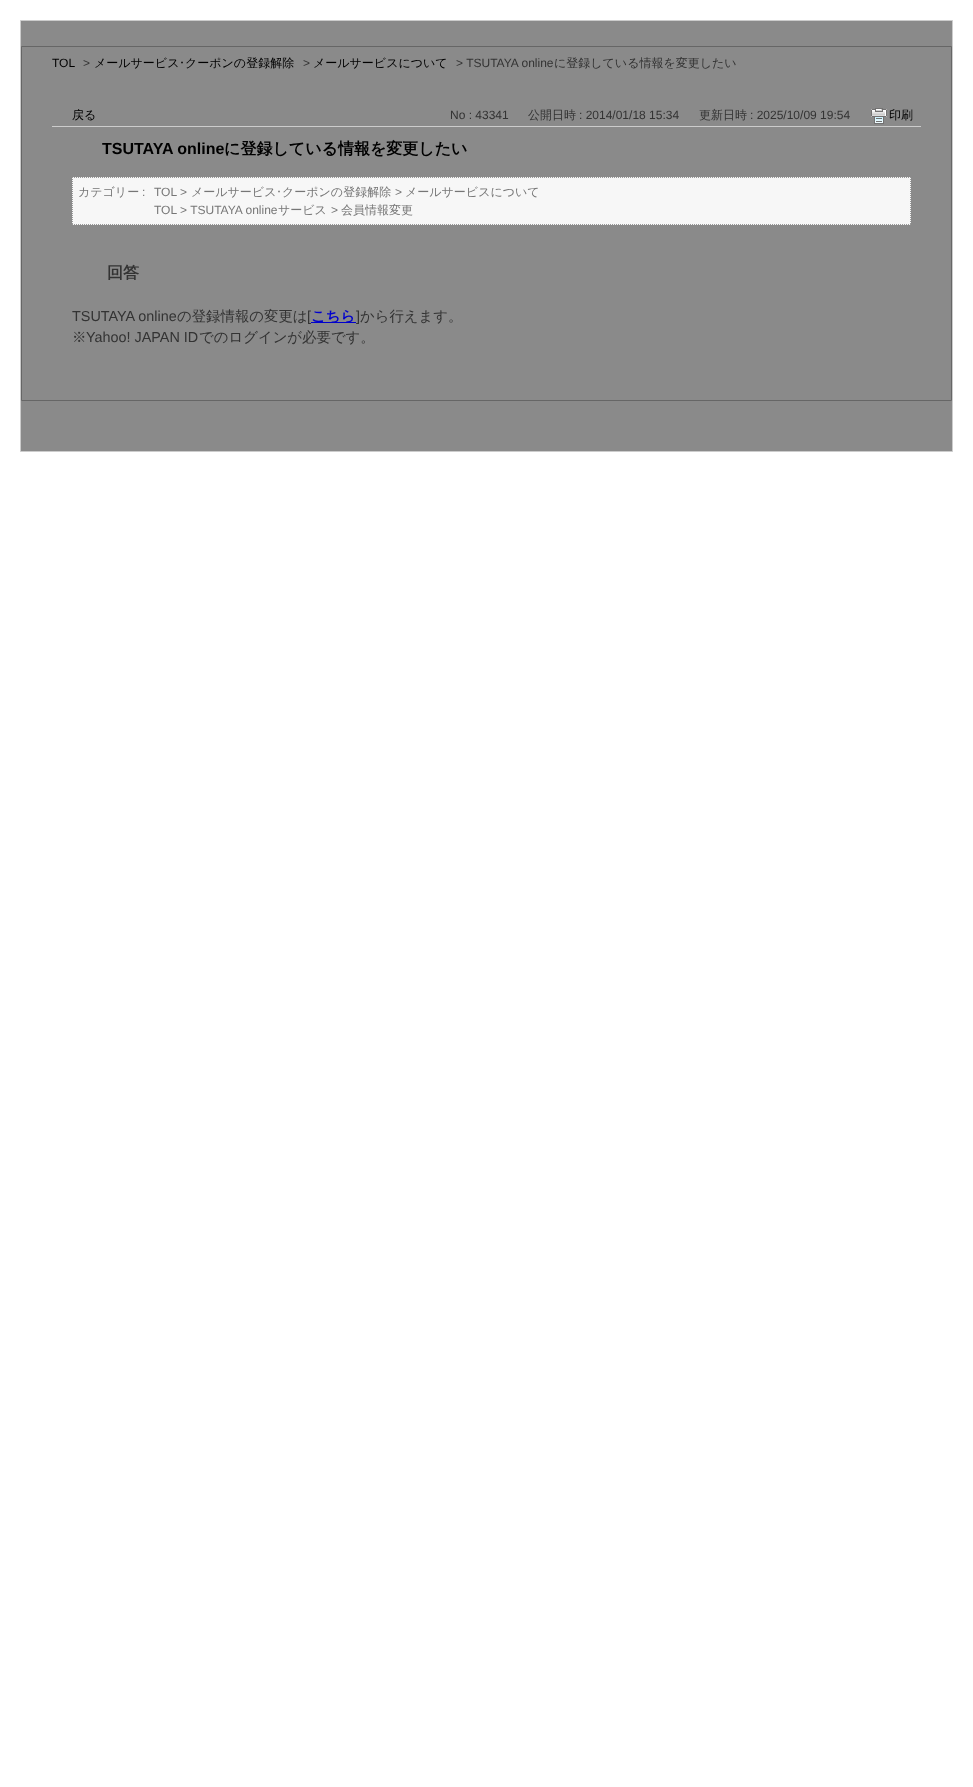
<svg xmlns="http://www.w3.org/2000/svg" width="973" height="1787">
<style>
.a{font:12px Liberation Sans;fill:#000}
.b{font:12px Liberation Sans;fill:#333}
.c{font:500 12px WenQuanYi Zen Hei;fill:#000}
.d{font:12px IPAPGothic;fill:#000}
.e{font:500 12px WenQuanYi Zen Hei;fill:#333}
.f{font:bold 16px Liberation Sans;fill:#000}
.g{font:bold 16px WenQuanYi Zen Hei;fill:#000}
.h{font:500 12px WenQuanYi Zen Hei;fill:#767676}
.i{font:12px Liberation Sans;fill:#767676}
.j{font:12px IPAPGothic;fill:#767676}
.k{font:bold 16px WenQuanYi Zen Hei;fill:#333}
.l{font:14.4px Liberation Sans;fill:#333}
.m{font:500 14.4px WenQuanYi Zen Hei;fill:#333}
.n{font:bold 14.4px WenQuanYi Zen Hei;fill:#0000cd}
</style>
<rect width="100%" height="100%" fill="#fff"/>
<path fill="#8a8a8a" stroke="#ccc" d="M20.5 20.5h932v431H20.5z"/>
<path fill="none" stroke="#666" d="M21.5 46.5h930v354H21.5z"/>
<path fill="#ccc" d="M52 126h869v1H52z"/>
<image href="1.png" x="871" y="108" width="16" height="16"/>
<path fill="#f7f7f7" d="M72 177h839v48H72z"/>
<path fill="none" stroke="#999" stroke-dasharray="1 1" d="M72 177.5h839"/>
<path fill="none" stroke="#999" stroke-dasharray="1 1" d="M910.5 177v48"/>
<path fill="none" stroke="#999" stroke-dasharray="1 1" d="M72 224.5h839"/>
<path fill="none" stroke="#999" stroke-dasharray="1 1" d="M72.5 177v48"/>
<text class="a" x="52" y="67">TOL</text>
<text class="b" x="83" y="67">&gt;</text>
<text class="c" x="94" y="67">メールサービス</text>
<text class="d" x="179" y="67">･</text>
<text class="c" x="185" y="67">クーポンの登録解除</text>
<text class="b" x="303" y="67">&gt;</text>
<text class="c" x="313" y="67">メールサービスについて</text>
<text class="b" x="456" y="67">&gt; TSUTAYA online</text>
<text class="e" x="554" y="67">に登録している情報を変更したい</text>
<text class="c" x="72" y="119">戻る</text>
<text class="b" x="450" y="119">No : 43341</text>
<text class="e" x="528" y="119">公開日時</text>
<text class="b" x="579" y="119">: 2014/01/18 15:34</text>
<text class="e" x="699" y="119">更新日時</text>
<text class="b" x="750" y="119">: 2025/10/09 19:54</text>
<text class="c" x="889" y="119">印刷</text>
<text class="f" x="102" y="154">TSUTAYA online</text>
<text class="g" x="224" y="154">に登録している情報を変更したい</text>
<text class="h" x="78" y="196">カテゴリー</text>
<text class="i" x="142" y="196">:</text>
<text class="i" x="154" y="196">TOL &gt;</text>
<text class="h" x="191" y="196">メールサービス</text>
<text class="j" x="276" y="196">･</text>
<text class="h" x="282" y="196">クーポンの登録解除</text>
<text class="i" x="395" y="196">&gt;</text>
<text class="h" x="405" y="196">メールサービスについて</text>
<text class="i" x="154" y="214">TOL &gt; TSUTAYA online</text>
<text class="h" x="278" y="214">サービス</text>
<text class="i" x="331" y="214">&gt;</text>
<text class="h" x="341" y="214">会員情報変更</text>
<text class="k" x="107" y="278">回答</text>
<text class="l" x="72" y="321">TSUTAYA online</text>
<text class="m" x="177" y="321">の登録情報の変更は</text>
<text class="l" x="307" y="321">[</text>
<path fill="#0000cd" d="M311 322h45v1H311z"/>
<text class="n" x="311" y="321">こちら</text>
<text class="l" x="356" y="321">]</text>
<text class="m" x="360" y="321">から行えます。</text>
<text class="m" x="72" y="342">※</text>
<text class="l" x="86" y="342">Yahoo! JAPAN ID</text>
<text class="m" x="199" y="342">でのログインが必要です。</text>
</svg>
